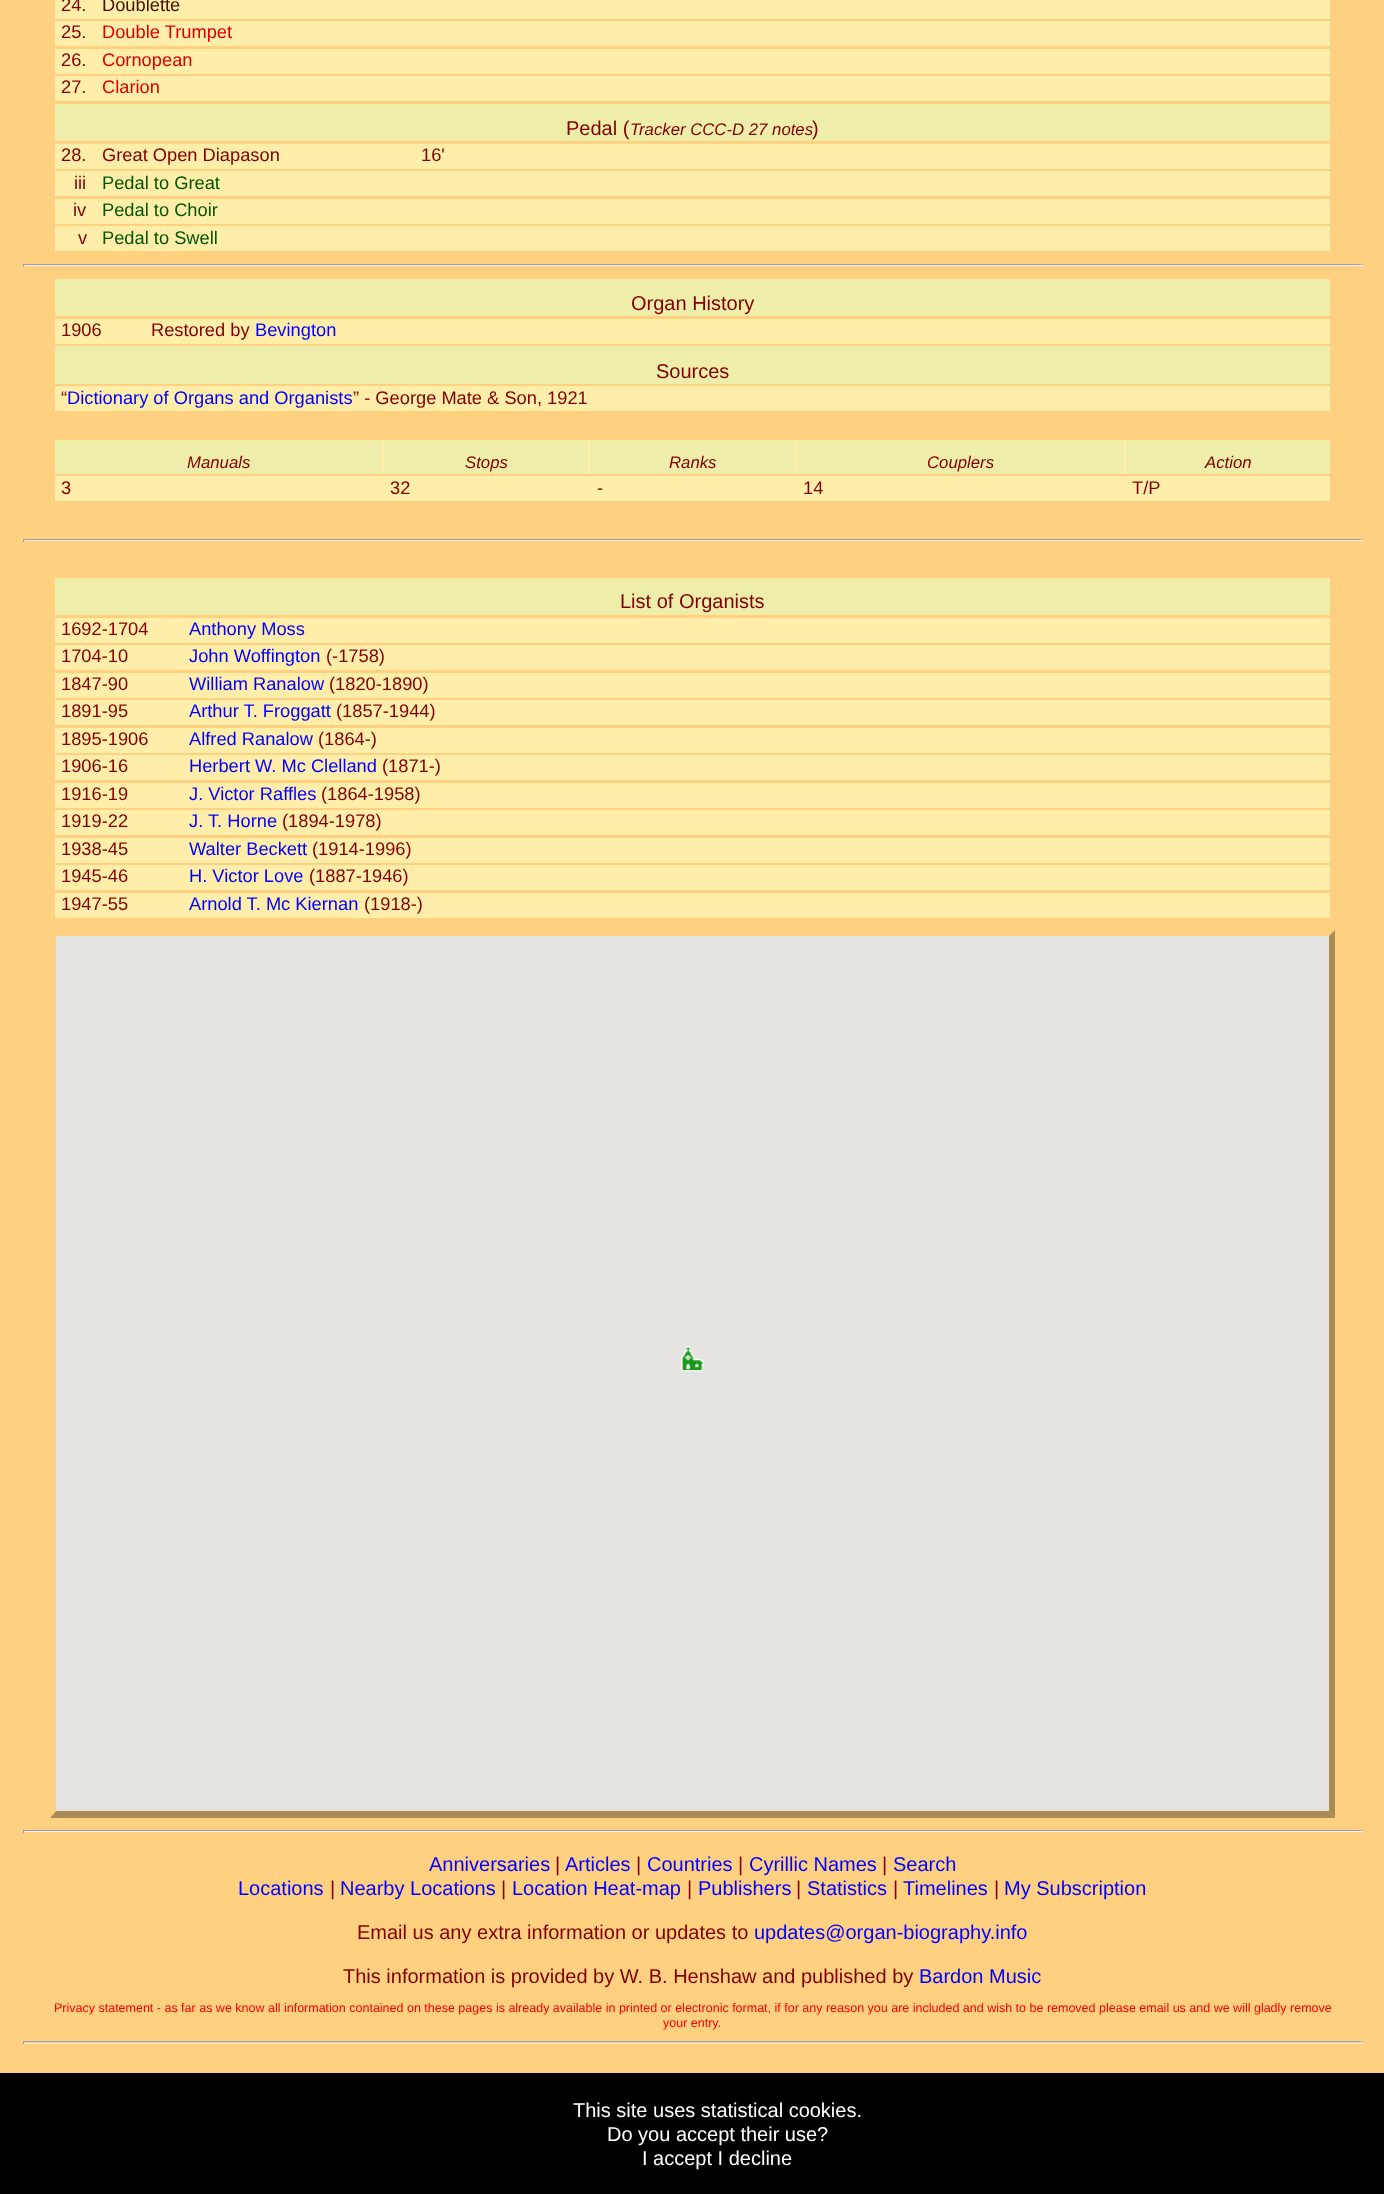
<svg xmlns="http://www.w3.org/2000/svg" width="1384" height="2194">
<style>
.a{font:18.3px Liberation Sans;fill:#800000}
.b{font:18.3px Liberation Sans;fill:#401000}
.c{font:18.3px Liberation Sans;fill:#d00}
.d{font:20px Liberation Sans;fill:#800000}
.e{font:italic 16.75px Liberation Sans;fill:#800000}
.f{font:18.3px Liberation Sans;fill:#050}
.g{font:18.3px Liberation Sans;fill:#00f}
.h{font:20px Liberation Sans;fill:#00f}
.i{font:12.5px Liberation Sans;fill:#f00}
.j{font:20px Liberation Sans;fill:#fff}
</style>
<rect width="100%" height="100%" fill="#ffd080"/>
<path fill="#fea" d="M55 0h1275v19H55z"/>
<path fill="#fea" d="M55 21h1275v25H55z"/>
<path fill="#fea" d="M55 49h1275v25H55z"/>
<path fill="#fea" d="M55 76h1275v25H55z"/>
<path fill="#eea" d="M55 104h1275v37H55z"/>
<path fill="#fea" d="M55 144h1275v25H55z"/>
<path fill="#fea" d="M55 171h1275v25H55z"/>
<path fill="#fea" d="M55 199h1275v25H55z"/>
<path fill="#fea" d="M55 226h1275v25H55z"/>
<path fill="#9f9f9f" d="M23 264h1340v1H23z"/>
<path fill="#eee" d="M1361 264h1v3H1361z"/>
<path fill="#eee" d="M23 265h1340v1H23z"/>
<path fill="#9f9f9f" d="M23 264h1v3H23z"/>
<path fill="#eea" d="M55 279h1275v37H55z"/>
<path fill="#fea" d="M55 319h1275v25H55z"/>
<path fill="#eea" d="M55 346h1275v38H55z"/>
<path fill="#fea" d="M55 386h1275v25H55z"/>
<path fill="#fea" d="M381 440h745v34H381z"/>
<path fill="#eea" d="M55 440h326v34H55z"/>
<path fill="#eea" d="M384 440h204v34H384z"/>
<path fill="#eea" d="M590 440h205v34H590z"/>
<path fill="#eea" d="M798 440h326v34H798z"/>
<path fill="#eea" d="M1126 440h204v34H1126z"/>
<path fill="#fea" d="M55 476h1275v25H55z"/>
<path fill="#9f9f9f" d="M23 539h1340v1H23z"/>
<path fill="#eee" d="M1361 539h1v3H1361z"/>
<path fill="#eee" d="M23 540h1340v1H23z"/>
<path fill="#9f9f9f" d="M23 539h1v3H23z"/>
<path fill="#eea" d="M55 578h1275v37H55z"/>
<path fill="#fea" d="M55 618h1275v25H55z"/>
<path fill="#fea" d="M55 645h1275v25H55z"/>
<path fill="#fea" d="M55 673h1275v25H55z"/>
<path fill="#fea" d="M55 700h1275v25H55z"/>
<path fill="#fea" d="M55 728h1275v25H55z"/>
<path fill="#fea" d="M55 755h1275v25H55z"/>
<path fill="#fea" d="M55 783h1275v25H55z"/>
<path fill="#fea" d="M55 810h1275v25H55z"/>
<path fill="#fea" d="M55 838h1275v25H55z"/>
<path fill="#fea" d="M55 865h1275v25H55z"/>
<path fill="#fea" d="M55 893h1275v25H55z"/>
<path fill="#aa8b55" d="M1335 930v888l-6-7v-875z"/>
<path fill="#aa8b55" d="M1335 1818h-1285l6-7h1273z"/>
<path fill="#ffd080" d="M50 1818v-888l6 6v875z"/>
<path fill="#e5e3df" d="M56 936h1273v875H56z"/>
<image href="1.png" x="681" y="1346" width="23" height="26"/>
<path fill="#9f9f9f" d="M23 1830h1340v1H23z"/>
<path fill="#eee" d="M1361 1830h1v3H1361z"/>
<path fill="#eee" d="M23 1831h1340v1H23z"/>
<path fill="#9f9f9f" d="M23 1830h1v3H23z"/>
<path fill="#9f9f9f" d="M23 2041h1340v1H23z"/>
<path fill="#eee" d="M1361 2041h1v3H1361z"/>
<path fill="#eee" d="M23 2043h1340v1H23z"/>
<path fill="#9f9f9f" d="M23 2041h1v3H23z"/>
<path fill="#000" d="M0 2073h1384v121H0z"/>
<text class="a" x="61" y="11">24.</text>
<text class="b" x="102" y="11">Doublette</text>
<text class="a" x="61" y="38">25.</text>
<text class="c" x="102" y="38">Double Trumpet</text>
<text class="a" x="61" y="66">26.</text>
<text class="c" x="102" y="66">Cornopean</text>
<text class="a" x="61" y="93">27.</text>
<text class="c" x="102" y="93">Clarion</text>
<text class="d" x="566" y="135">Pedal (</text>
<text class="e" x="630" y="135">Tracker CCC-D 27 notes</text>
<text class="d" x="812" y="135">)</text>
<text class="a" x="61" y="161">28.</text>
<text class="a" x="102" y="161">Great Open Diapason</text>
<text class="a" x="421" y="161">16'</text>
<text class="a" x="74" y="189">iii</text>
<text class="f" x="102" y="189">Pedal to Great</text>
<text class="a" x="73" y="216">iv</text>
<text class="f" x="102" y="216">Pedal to Choir</text>
<text class="a" x="78" y="244">v</text>
<text class="f" x="102" y="244">Pedal to Swell</text>
<text class="d" x="631" y="310">Organ History</text>
<text class="a" x="61" y="336">1906</text>
<text class="a" x="151" y="336">Restored by</text>
<text class="g" x="255" y="336">Bevington</text>
<text class="d" x="656" y="378">Sources</text>
<text class="a" x="61" y="404">“</text>
<text class="g" x="67" y="404">Dictionary of Organs and Organists</text>
<text class="a" x="353" y="404">” - George Mate &amp; Son, 1921</text>
<text class="e" x="187" y="468">Manuals</text>
<text class="e" x="465" y="468">Stops</text>
<text class="e" x="669" y="468">Ranks</text>
<text class="e" x="927" y="468">Couplers</text>
<text class="e" x="1205" y="468">Action</text>
<text class="a" x="61" y="494">3</text>
<text class="a" x="390" y="494">32</text>
<text class="a" x="597" y="494">-</text>
<text class="a" x="803" y="494">14</text>
<text class="a" x="1132" y="494">T/P</text>
<text class="d" x="620" y="608">List of Organists</text>
<text class="a" x="61" y="635">1692-1704</text>
<text class="g" x="189" y="635">Anthony Moss</text>
<text class="a" x="61" y="662">1704-10</text>
<text class="g" x="189" y="662">John Woffington</text>
<text class="a" x="326" y="662">(-1758)</text>
<text class="a" x="61" y="690">1847-90</text>
<text class="g" x="189" y="690">William Ranalow</text>
<text class="a" x="329" y="690">(1820-1890)</text>
<text class="a" x="61" y="717">1891-95</text>
<text class="g" x="189" y="717">Arthur T. Froggatt</text>
<text class="a" x="336" y="717">(1857-1944)</text>
<text class="a" x="61" y="745">1895-1906</text>
<text class="g" x="189" y="745">Alfred Ranalow</text>
<text class="a" x="318" y="745">(1864-)</text>
<text class="a" x="61" y="772">1906-16</text>
<text class="g" x="189" y="772">Herbert W. Mc Clelland</text>
<text class="a" x="382" y="772">(1871-)</text>
<text class="a" x="61" y="800">1916-19</text>
<text class="g" x="189" y="800">J. Victor Raffles</text>
<text class="a" x="321" y="800">(1864-1958)</text>
<text class="a" x="61" y="827">1919-22</text>
<text class="g" x="189" y="827">J. T. Horne</text>
<text class="a" x="282" y="827">(1894-1978)</text>
<text class="a" x="61" y="855">1938-45</text>
<text class="g" x="189" y="855">Walter Beckett</text>
<text class="a" x="312" y="855">(1914-1996)</text>
<text class="a" x="61" y="882">1945-46</text>
<text class="g" x="189" y="882">H. Victor Love</text>
<text class="a" x="309" y="882">(1887-1946)</text>
<text class="a" x="61" y="910">1947-55</text>
<text class="g" x="189" y="910">Arnold T. Mc Kiernan</text>
<text class="a" x="364" y="910">(1918-)</text>
<text class="h" x="429" y="1871">Anniversaries</text>
<text class="d" x="555" y="1871">|</text>
<text class="h" x="565" y="1871">Articles</text>
<text class="d" x="636" y="1871">|</text>
<text class="h" x="647" y="1871">Countries</text>
<text class="d" x="738" y="1871">|</text>
<text class="h" x="749" y="1871">Cyrillic Names</text>
<text class="d" x="882" y="1871">|</text>
<text class="h" x="893" y="1871">Search</text>
<text class="h" x="238" y="1895">Locations</text>
<text class="d" x="330" y="1895">|</text>
<text class="h" x="340" y="1895">Nearby Locations</text>
<text class="d" x="501" y="1895">|</text>
<text class="h" x="512" y="1895">Location Heat-map</text>
<text class="d" x="687" y="1895">|</text>
<text class="h" x="698" y="1895">Publishers</text>
<text class="d" x="796" y="1895">|</text>
<text class="h" x="807" y="1895">Statistics</text>
<text class="d" x="893" y="1895">|</text>
<text class="h" x="903" y="1895">Timelines</text>
<text class="d" x="994" y="1895">|</text>
<text class="h" x="1004" y="1895">My Subscription</text>
<text class="d" x="357" y="1939">Email us any extra information or updates to</text>
<text class="h" x="754" y="1939">updates@organ-biography.info</text>
<text class="d" x="343" y="1983">This information is provided by W. B. Henshaw and published by</text>
<text class="h" x="919" y="1983">Bardon Music</text>
<text class="i" x="54" y="2012">Privacy statement - as far as we know all information contained on these pages is already available in printed or electronic format, if for any reason you are included and wish to be removed please email us and we will gladly remove</text>
<text class="i" x="663" y="2027">your entry.</text>
<text class="j" x="573" y="2117">This site uses statistical cookies.</text>
<text class="j" x="607" y="2141">Do you accept their use?</text>
<text class="j" x="642" y="2165">I accept I decline</text>
</svg>
